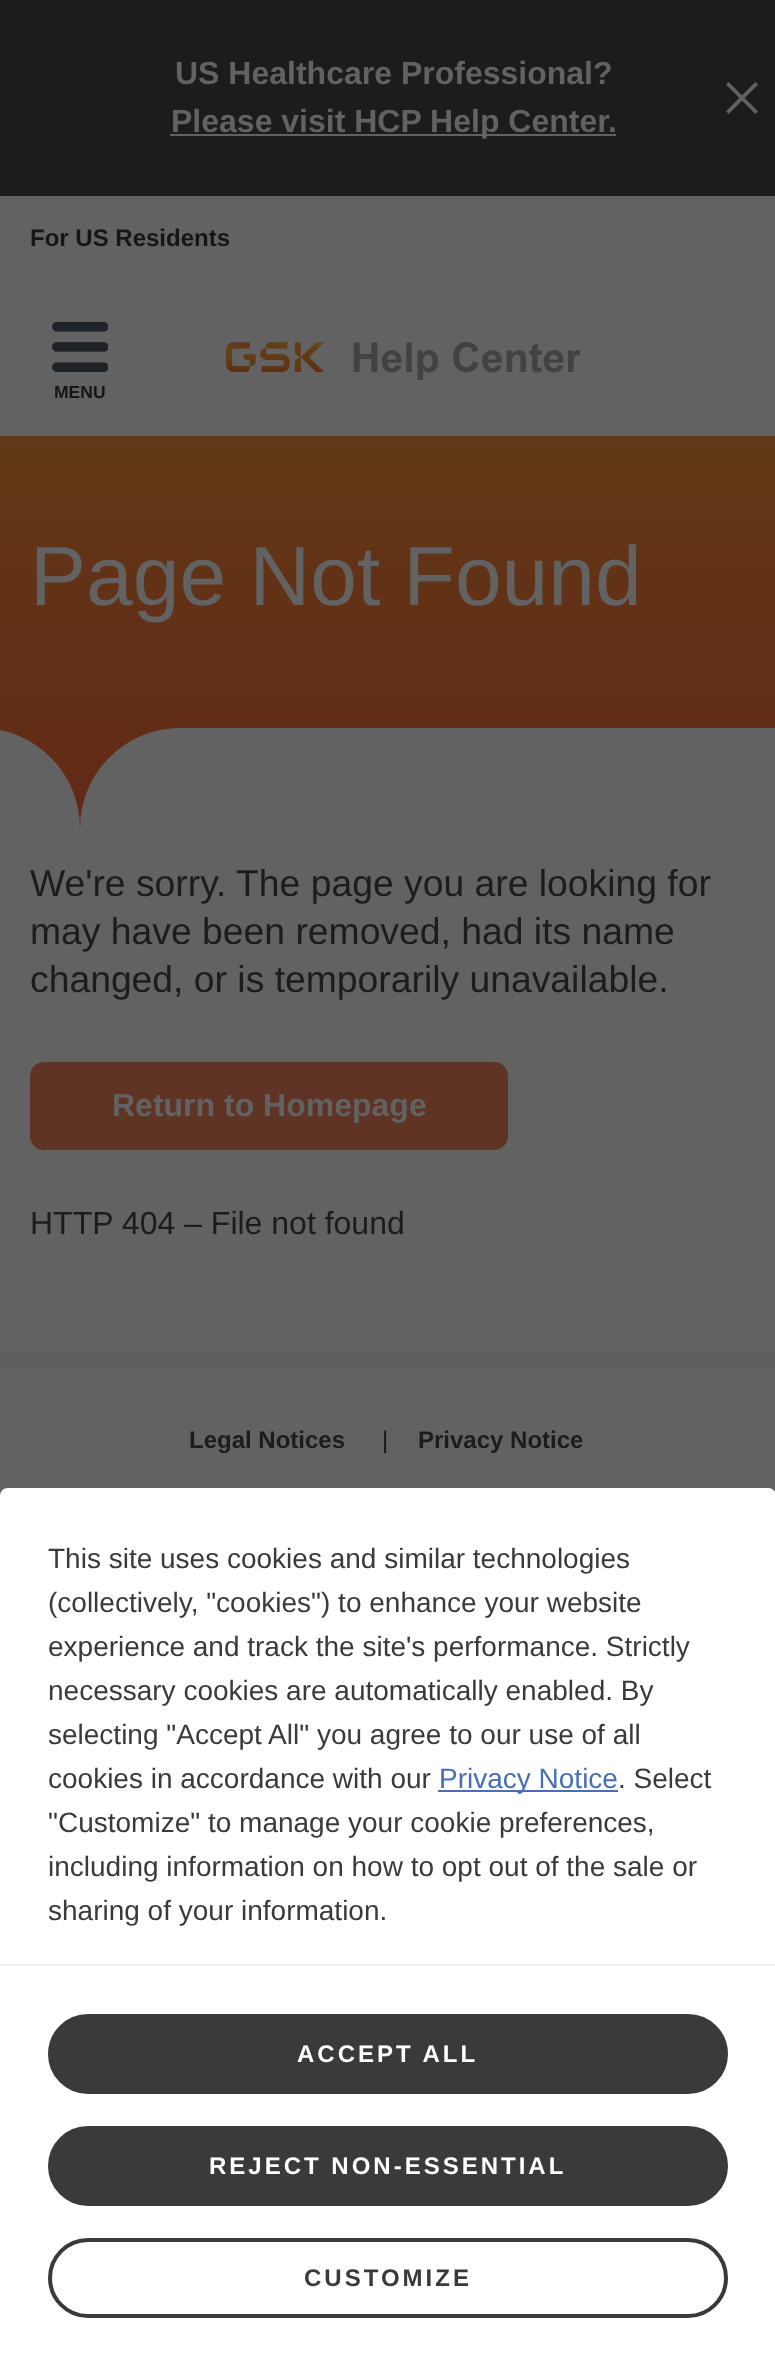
<svg xmlns="http://www.w3.org/2000/svg" width="775" height="2365">
<style>
.a{font:bold 32px Liberation Sans;fill:#626262}
.b{font:bold 24px Liberation Sans;fill:#161616}
.c{font:bold 17.5px Liberation Sans;fill:#161616}
.d{font:84px Liberation Sans;fill:#626262}
.e{font:37.3px Liberation Sans;fill:#1c1c1c}
.f{font:32px Liberation Sans;fill:#1c1c1c}
.g{font:bold 24px Liberation Sans;fill:#1c1c1c}
.h{font:24px Liberation Sans;fill:#161616}
.i{font:28px Liberation Sans;fill:#3a3a3a}
.j{font:28px Liberation Sans;fill:#476fb5}
.k{font:bold 24px Liberation Sans;letter-spacing:3px;fill:#fff}
.l{font:bold 24px Liberation Sans;letter-spacing:3px;fill:#3a3a3a}
</style>
<defs>
<linearGradient id="g1" gradientUnits="userSpaceOnUse" x1="388" y1="436" x2="388" y2="828"><stop offset="0" stop-color="#623a16"/><stop offset="0.42" stop-color="#623116"/><stop offset="1" stop-color="#622916"/></linearGradient>
</defs>
<rect width="100%" height="100%" fill="#626262"/>
<path fill="#1c1c1c" d="M0 0h775v196H0z"/>
<path fill="#626262" d="M170 134h446v2H170z"/>
<image href="1.png" x="726" y="82" width="32" height="32"/>
<image href="2.png" x="226" y="342" width="354" height="38"/>
<image href="3.png" x="52" y="322" width="56" height="50"/>
<path fill="url(#g1)" d="M0 436h775v392H0z"/>
<path fill="#626262" d="M0 728h-20c55 0 100 45 100 100h-80z"/>
<path fill="#626262" d="M180 728h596v100h-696c0-55 45-100 100-100z"/>
<rect fill="#5f3425" stroke="#5f3425" stroke-width="2" x="31" y="1063" width="476" height="86" rx="13"/>
<path fill="#5e5d5d" d="M0 1352h775v16H0z"/>
<path fill="#fff" d="M8 1488h760c4.5 0 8 3.5 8 8v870h-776v-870c0-4.5 3.5-8 8-8z"/>
<path fill="#476fb5" d="M438 1790h180v2H438z"/>
<path fill="#efefed" d="M0 1964h775v2H0z"/>
<rect fill="#3a3a3a" stroke="#3a3a3a" stroke-width="4" x="50" y="2016" width="676" height="76" rx="38"/>
<rect fill="#3a3a3a" stroke="#3a3a3a" stroke-width="4" x="50" y="2128" width="676" height="76" rx="38"/>
<rect fill="none" stroke="#3a3a3a" stroke-width="4" x="50" y="2240" width="676" height="76" rx="38"/>
<text class="a" x="175" y="84">US Healthcare Professional?</text>
<text class="a" x="171" y="132">Please visit HCP Help Center.</text>
<text class="b" x="30" y="246">For US Residents</text>
<text class="c" x="54" y="398">MENU</text>
<text class="d" x="30" y="605">Page Not Found</text>
<text class="e" x="30" y="896">We're sorry. The page you are looking for</text>
<text class="e" x="30" y="944">may have been removed, had its name</text>
<text class="e" x="30" y="992">changed, or is temporarily unavailable.</text>
<text class="a" x="112" y="1116">Return to Homepage</text>
<text class="f" x="30" y="1234">HTTP 404 – File not found</text>
<text class="g" x="189" y="1448">Legal Notices</text>
<text class="h" x="382" y="1448">|</text>
<text class="g" x="418" y="1448">Privacy Notice</text>
<text class="i" x="48" y="1568">This site uses cookies and similar technologies</text>
<text class="i" x="48" y="1612">(collectively, "cookies") to enhance your website</text>
<text class="i" x="48" y="1656">experience and track the site's performance. Strictly</text>
<text class="i" x="48" y="1700">necessary cookies are automatically enabled. By</text>
<text class="i" x="48" y="1744">selecting "Accept All" you agree to our use of all</text>
<text class="i" x="48" y="1788">cookies in accordance with our</text>
<text class="j" x="439" y="1788">Privacy Notice</text>
<text class="i" x="618" y="1788">. Select</text>
<text class="i" x="48" y="1832">"Customize" to manage your cookie preferences,</text>
<text class="i" x="48" y="1876">including information on how to opt out of the sale or</text>
<text class="i" x="48" y="1920">sharing of your information.</text>
<text class="k" x="297" y="2062">ACCEPT ALL</text>
<text class="k" x="209" y="2174">REJECT NON-ESSENTIAL</text>
<text class="l" x="304" y="2286">CUSTOMIZE</text>
</svg>
